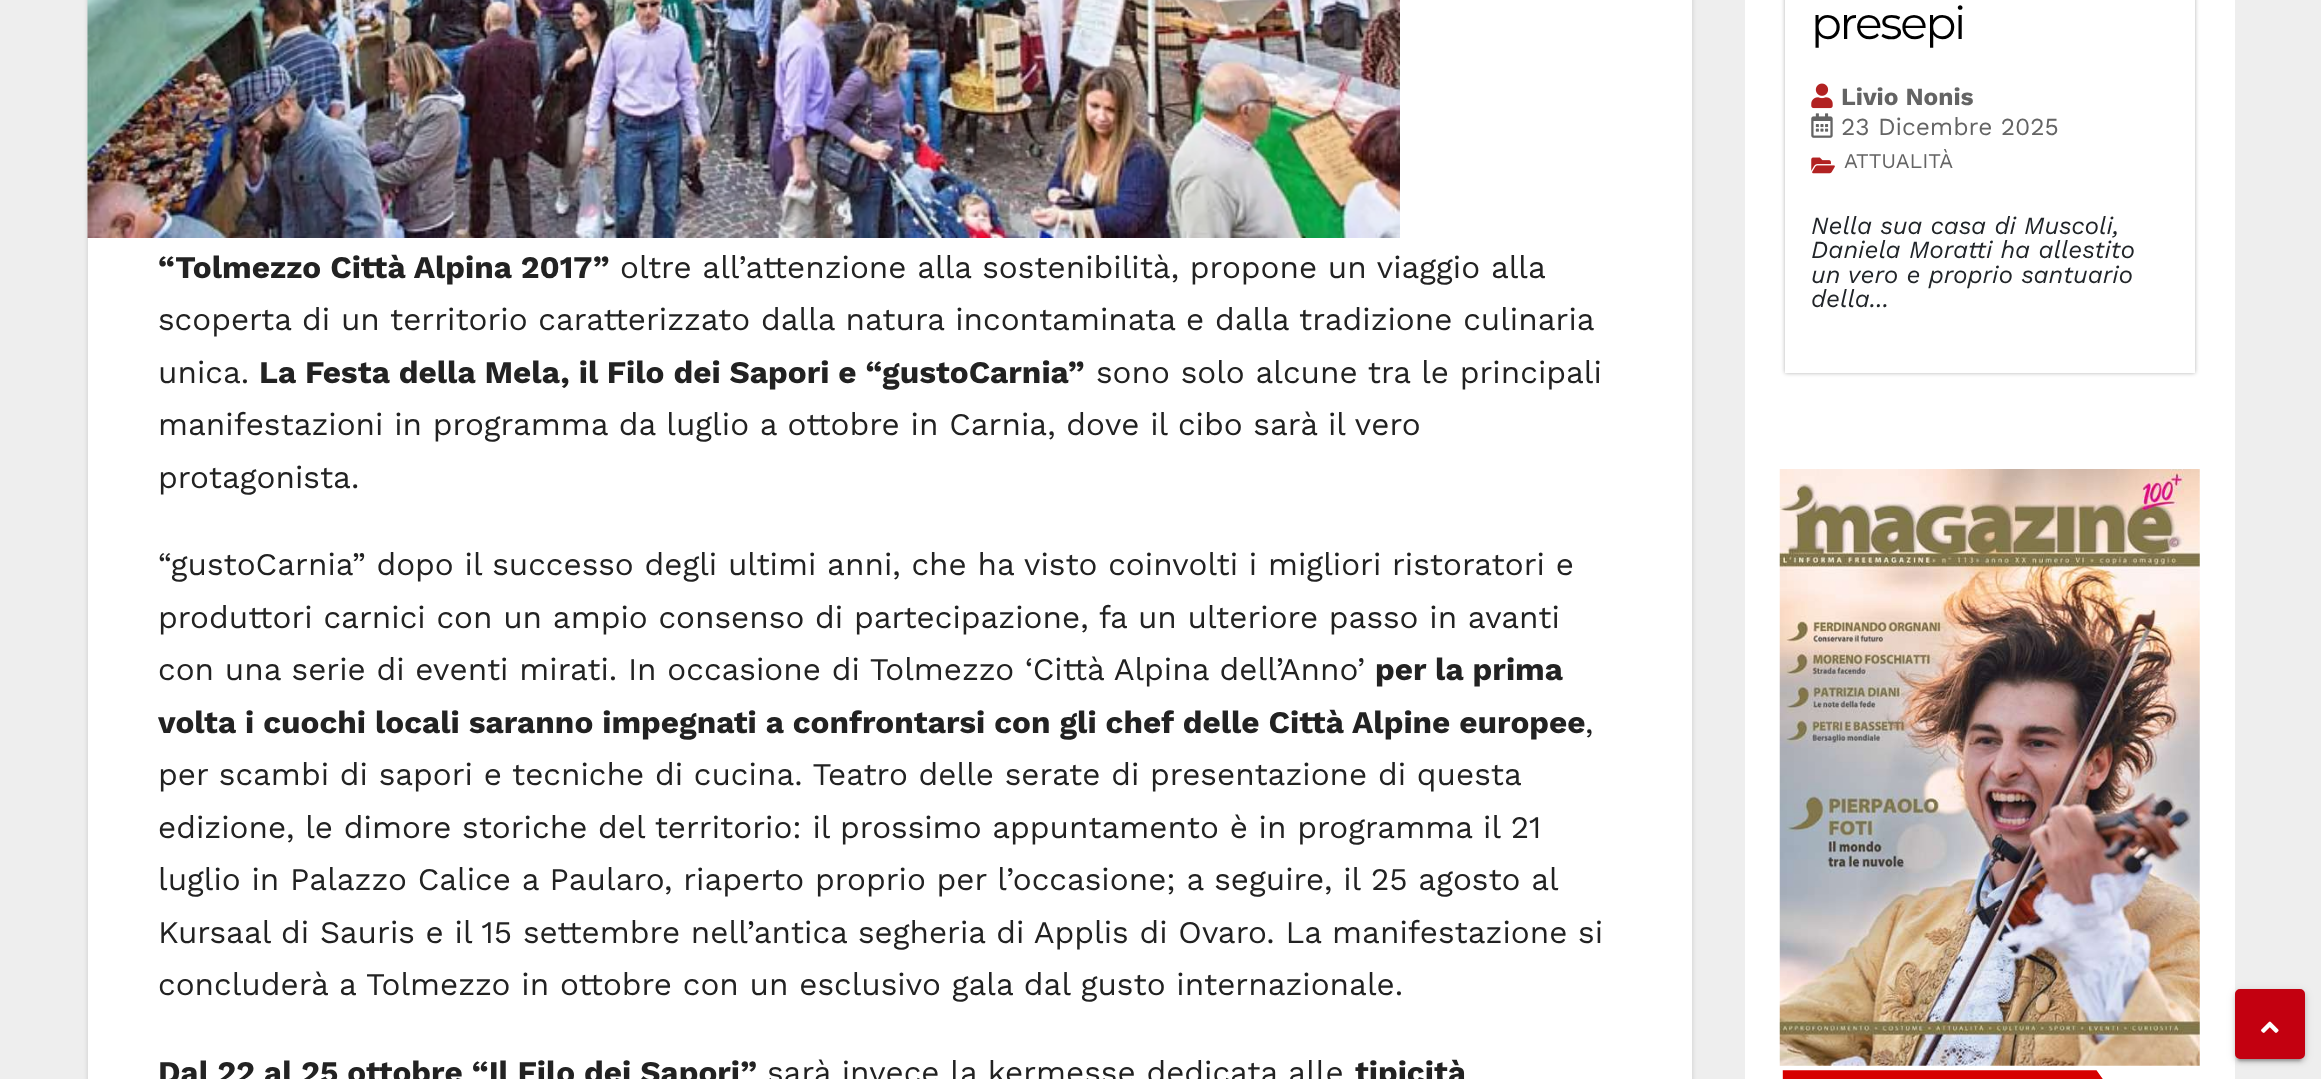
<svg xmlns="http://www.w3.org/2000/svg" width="2321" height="1079">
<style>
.a{font:100 45.5px Montserrat;letter-spacing:-2.25px;fill:#000}
.b{font:bold 24.5px Work Sans;fill:#646464}
.c{font:24.5px Work Sans;fill:#646464}
.d{font:21px Work Sans;fill:#646464}
.e{font:italic 24.5px Work Sans;fill:#212529}
.f{font:bold 31.5px Work Sans;fill:#222}
.g{font:31.5px Work Sans;fill:#222}
</style>
<rect width="100%" height="100%" fill="#eee"/>
<path fill="#fff" d="M1745 0h490v1079H1745z"/>
<path fill="#0000004d" filter="blur(2px)" d="M1785 -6h410v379H1785z"/>
<path fill="#fff" d="M1785 0h410v373H1785z"/>
<image href="1.png" x="1811" y="83" width="22" height="26"/>
<image href="2.png" x="1811" y="113" width="22" height="25"/>
<image href="3.png" x="1811" y="157" width="24" height="17"/>
<image href="4.png" x="1779" y="469" width="421" height="597"/>
<image href="5.png" x="1782" y="1070" width="321" height="9"/>
<path fill="#00000026" filter="blur(2.5px)" d="M88 -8h1604v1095H88z"/>
<path fill="#fff" d="M88 0h1604v1079H88z"/>
<image href="6.png" x="87" y="0" width="1313" height="238"/>
<rect fill="#0000001f" filter="blur(4.5px)" x="2235" y="991" width="70" height="70" rx="5"/>
<rect fill="#00000033" filter="blur(1px)" x="2238" y="998" width="63" height="63" rx="2"/>
<rect fill="#00000024" filter="blur(2px)" x="2235" y="992" width="70" height="70" rx="5"/>
<rect fill="#c30010" stroke="#c30010" stroke-width="4" x="2237" y="991" width="66" height="66" rx="3"/>
<image href="7.png" x="2261" y="1021" width="18" height="12"/>
<text class="a" x="1811" y="39">presepi</text>
<text class="b" x="1841" y="105">Livio Nonis</text>
<text class="c" x="1841" y="135">23 Dicembre 2025</text>
<text class="d" x="1844" y="168">ATTUALITÀ</text>
<text class="e" x="1811" y="234">Nella sua casa di Muscoli,</text>
<text class="e" x="1811" y="258">Daniela Moratti ha allestito</text>
<text class="e" x="1811" y="283">un vero e proprio santuario</text>
<text class="e" x="1811" y="307">della...</text>
<text class="f" x="158" y="278">“Tolmezzo Città Alpina 2017”</text>
<text class="g" x="620" y="278">oltre all’attenzione alla sostenibilità, propone un viaggio alla</text>
<text class="g" x="158" y="330">scoperta di un territorio caratterizzato dalla natura incontaminata e dalla tradizione culinaria</text>
<text class="g" x="158" y="383">unica.</text>
<text class="f" x="259" y="383">La Festa della Mela, il Filo dei Sapori e “gustoCarnia”</text>
<text class="g" x="1096" y="383">sono solo alcune tra le principali</text>
<text class="g" x="158" y="435">manifestazioni in programma da luglio a ottobre in Carnia, dove il cibo sarà il vero</text>
<text class="g" x="158" y="488">protagonista.</text>
<text class="g" x="158" y="575">“gustoCarnia” dopo il successo degli ultimi anni, che ha visto coinvolti i migliori ristoratori e</text>
<text class="g" x="158" y="628">produttori carnici con un ampio consenso di partecipazione, fa un ulteriore passo in avanti</text>
<text class="g" x="158" y="680">con una serie di eventi mirati. In occasione di Tolmezzo ‘Città Alpina dell’Anno’</text>
<text class="f" x="1375" y="680">per la prima</text>
<text class="f" x="158" y="733">volta i cuochi locali saranno impegnati a confrontarsi con gli chef delle Città Alpine europee</text>
<text class="g" x="1585" y="733">,</text>
<text class="g" x="158" y="785">per scambi di sapori e tecniche di cucina. Teatro delle serate di presentazione di questa</text>
<text class="g" x="158" y="838">edizione, le dimore storiche del territorio: il prossimo appuntamento è in programma il 21</text>
<text class="g" x="158" y="890">luglio in Palazzo Calice a Paularo, riaperto proprio per l’occasione; a seguire, il 25 agosto al</text>
<text class="g" x="158" y="943">Kursaal di Sauris e il 15 settembre nell’antica segheria di Applis di Ovaro. La manifestazione si</text>
<text class="g" x="158" y="995">concluderà a Tolmezzo in ottobre con un esclusivo gala dal gusto internazionale.</text>
<text class="f" x="158" y="1083">Dal 22 al 25 ottobre “Il Filo dei Sapori”</text>
<text class="g" x="767" y="1083">sarà invece la kermesse dedicata alle</text>
<text class="f" x="1355" y="1083">tipicità</text>
</svg>
